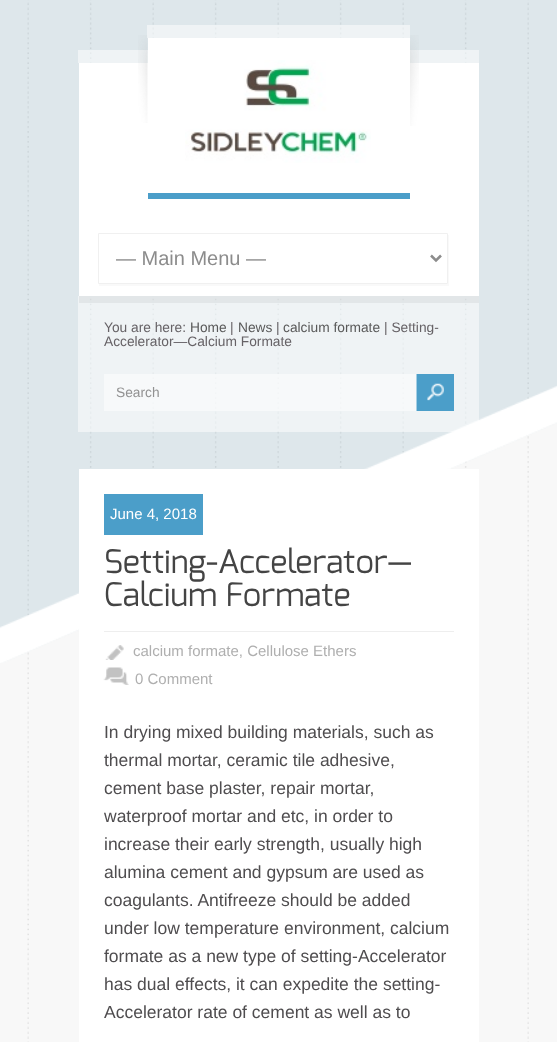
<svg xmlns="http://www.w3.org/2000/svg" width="557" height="1042">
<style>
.a{font:20px Liberation Sans;fill:#8c8c8c}
.b{font:13.75px Liberation Sans;fill:#666266}
.c{font:13.75px Liberation Sans;fill:#595959}
.d{font:13.75px Liberation Sans;fill:#929292}
.e{font:15px Liberation Sans;fill:#fff}
.f{font:32.5px Exo;fill:#444}
.g{font:15px Liberation Sans;fill:#afafaf}
.h{font:17.5px Liberation Sans;fill:#4f4d4f}
</style>
<rect width="100%" height="100%" fill="#fff"/>
<image href="1.png" x="0" y="0" width="557" height="1042"/>
<image href="2.png" x="0" y="0" width="557" height="663"/>
<path fill="#ffffff80" d="M78 50h401v13H78z"/>
<path fill="#fff" d="M79 63h400v233H79z"/>
<image href="3.png" x="138" y="35" width="10" height="88"/>
<path fill="#4b9ec9" d="M148 193h262v6H148z"/>
<path fill="#ffffff80" d="M147 25h263v13H147z"/>
<path fill="#fff" d="M148 38h262v25H148z"/>
<image href="4.png" x="185" y="60" width="186" height="103"/>
<image href="5.png" x="410" y="35" width="9" height="91"/>
<path fill="#f9f9f9" d="M99 284v2h350v-51h-1v49z"/>
<path fill="none" stroke="#f0f0f0" d="M98.5 233.5h349v50H98.5z"/>
<path fill="none" stroke="#8c8c8c" stroke-width="2.5" d="M431 255.5l5 5l5-5"/>
<path fill="#ffffff80" d="M78 296h401v136H78z"/>
<path fill="#0000000d" d="M79 296h400v7H79z"/>
<path fill="#4b9ec9" d="M416 374h38v37H416z"/>
<path fill="#ffffff80" d="M104 374h313v37H104z"/>
<image href="6.png" x="427" y="383" width="17" height="18"/>
<path fill="#fff" d="M79 469h400v573H79z"/>
<path fill="#4b9ec9" d="M104 494h99v41H104z"/>
<path fill="#eee" d="M104 631h350v1H104z"/>
<image href="7.png" x="105" y="645" width="19" height="15"/>
<image href="8.png" x="103" y="667" width="26" height="18"/>
<text class="a" x="116" y="265">— Main Menu —</text>
<text class="b" x="104" y="332">You are here:</text>
<text class="c" x="190" y="332">Home</text>
<text class="b" x="230" y="332">|</text>
<text class="c" x="238" y="332">News</text>
<text class="b" x="276" y="332">|</text>
<text class="c" x="283" y="332">calcium formate</text>
<text class="b" x="384" y="332">| Setting-</text>
<text class="b" x="104" y="346">Accelerator—Calcium Formate</text>
<text class="d" x="116" y="397">Search</text>
<text class="e" x="110" y="519">June 4, 2018</text>
<text class="f" x="104" y="573">Setting-Accelerator—</text>
<text class="f" x="104" y="606">Calcium Formate</text>
<text class="g" x="133" y="656">calcium formate, Cellulose Ethers</text>
<text class="g" x="135" y="684">0 Comment</text>
<text class="h" x="104" y="738">In drying mixed building materials, such as</text>
<text class="h" x="104" y="766">thermal mortar, ceramic tile adhesive,</text>
<text class="h" x="104" y="794">cement base plaster, repair mortar,</text>
<text class="h" x="104" y="822">waterproof mortar and etc, in order to</text>
<text class="h" x="104" y="850">increase their early strength, usually high</text>
<text class="h" x="104" y="878">alumina cement and gypsum are used as</text>
<text class="h" x="104" y="906">coagulants. Antifreeze should be added</text>
<text class="h" x="104" y="934">under low temperature environment, calcium</text>
<text class="h" x="104" y="962">formate as a new type of setting-Accelerator</text>
<text class="h" x="104" y="990">has dual effects, it can expedite the setting-</text>
<text class="h" x="104" y="1018">Accelerator rate of cement as well as to</text>
</svg>
